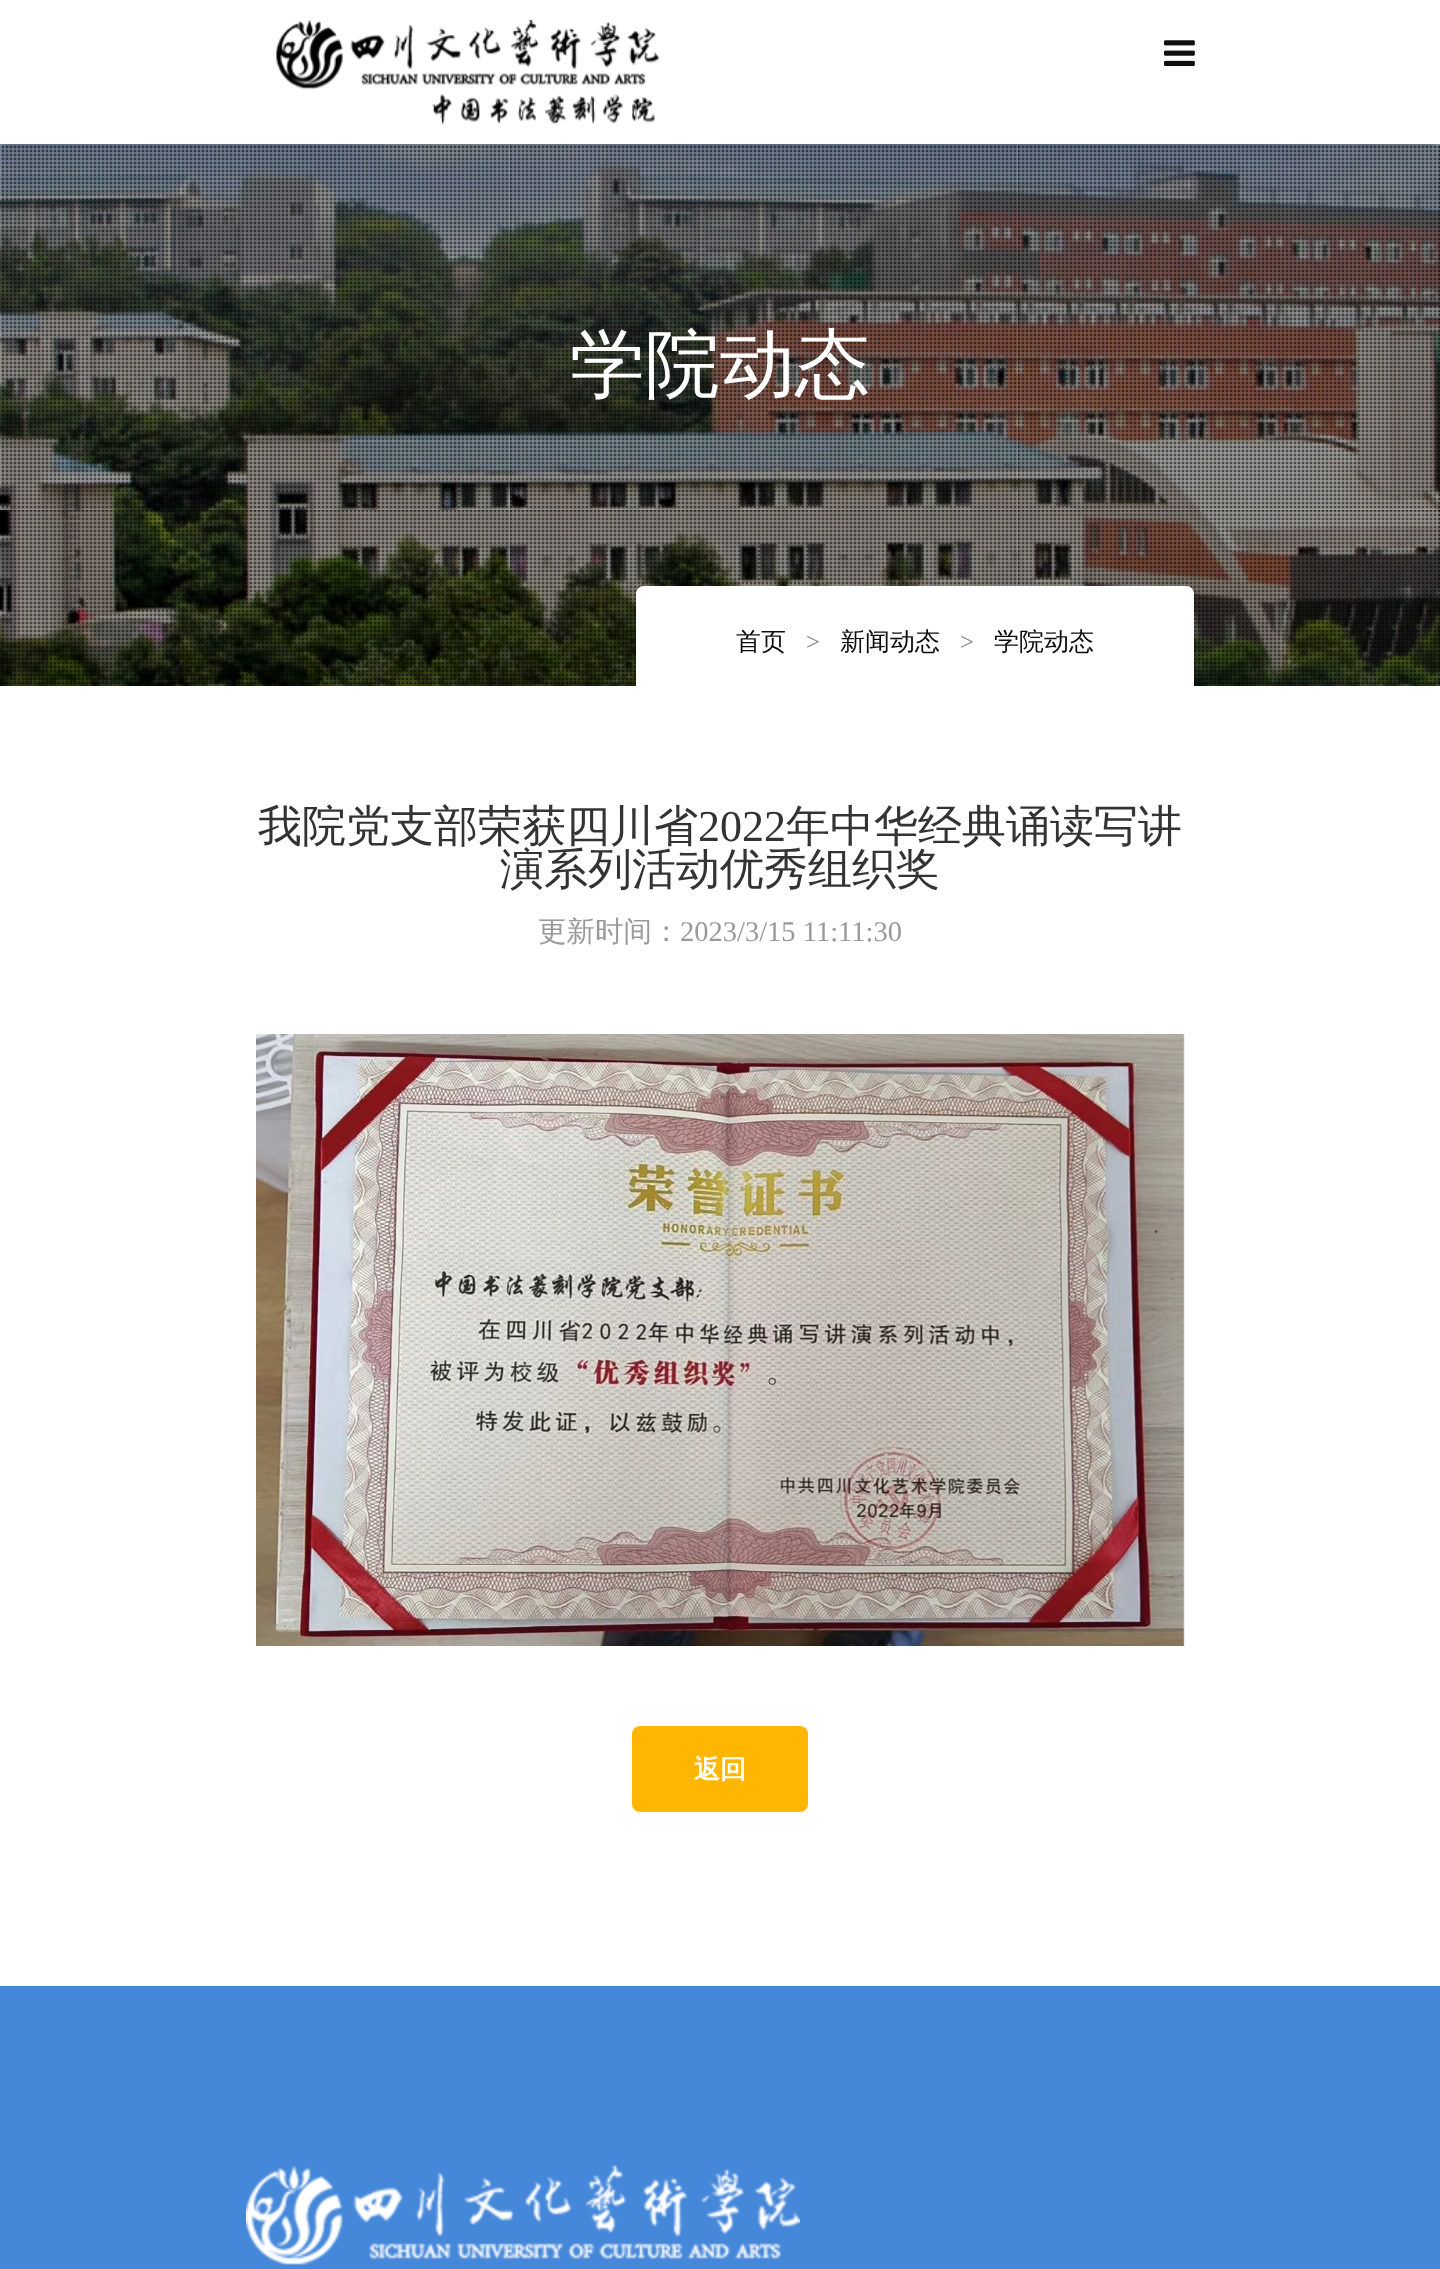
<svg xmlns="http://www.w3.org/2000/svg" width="1440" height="2269">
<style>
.a{font:500 75px WenQuanYi Zen Hei;fill:#fff}
.b{font:500 25px WenQuanYi Zen Hei;fill:#0b0b0b}
.c{font:25px Liberation Serif;fill:#7f7f7f}
.d{font:500 44px WenQuanYi Zen Hei;fill:#333}
.e{font:44px Liberation Serif;fill:#333}
.f{font:500 28.5px WenQuanYi Zen Hei;fill:#999}
.g{font:28.5px Liberation Serif;fill:#999}
.h{font:bold 26px WenQuanYi Zen Hei;fill:#fff}
</style>
<defs>
<clipPath id="clip1"><path d="M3 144h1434v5H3z"/></clipPath>
</defs>
<rect width="100%" height="100%" fill="#fff"/>
<image href="3.png" x="0" y="144" width="1440" height="542"/>
<g clip-path="url(#clip1)">
<path fill="#00000059" filter="blur(3px)" d="M6 12h1428v132H6z"/>
</g>
<image href="1.png" x="276" y="20" width="383" height="104"/>
<image href="2.png" x="1164" y="40" width="31" height="26"/>
<path fill="#fff" d="M644 586h542c4.5 0 8 3.5 8 8v92h-558v-92c0-4.5 3.5-8 8-8z"/>
<image href="4.png" x="256" y="1034" width="929" height="612"/>
<rect fill="#ffb600" stroke="#ffb600" stroke-width="2" x="633" y="1727" width="174" height="84" rx="7"/>
<path fill="#4587d9" d="M0 1986h1440v283H0z"/>
<image href="5.png" x="246" y="2165" width="554" height="100"/>
<text class="a" x="570" y="390">学院动态</text>
<text class="b" x="736" y="650">首页</text>
<text class="c" x="806" y="650">&gt;</text>
<text class="b" x="840" y="650">新闻动态</text>
<text class="c" x="960" y="650">&gt;</text>
<text class="b" x="994" y="650">学院动态</text>
<text class="d" x="258" y="841">我院党支部荣获四川省</text>
<text class="e" x="698" y="841">2022</text>
<text class="d" x="786" y="841">年中华经典诵读写讲</text>
<text class="d" x="500" y="884">演系列活动优秀组织奖</text>
<text class="f" x="538" y="941">更新时间：</text>
<text class="g" x="680" y="941">2023/3/15 11:11:30</text>
<text class="h" x="694" y="1778">返回</text>
</svg>
